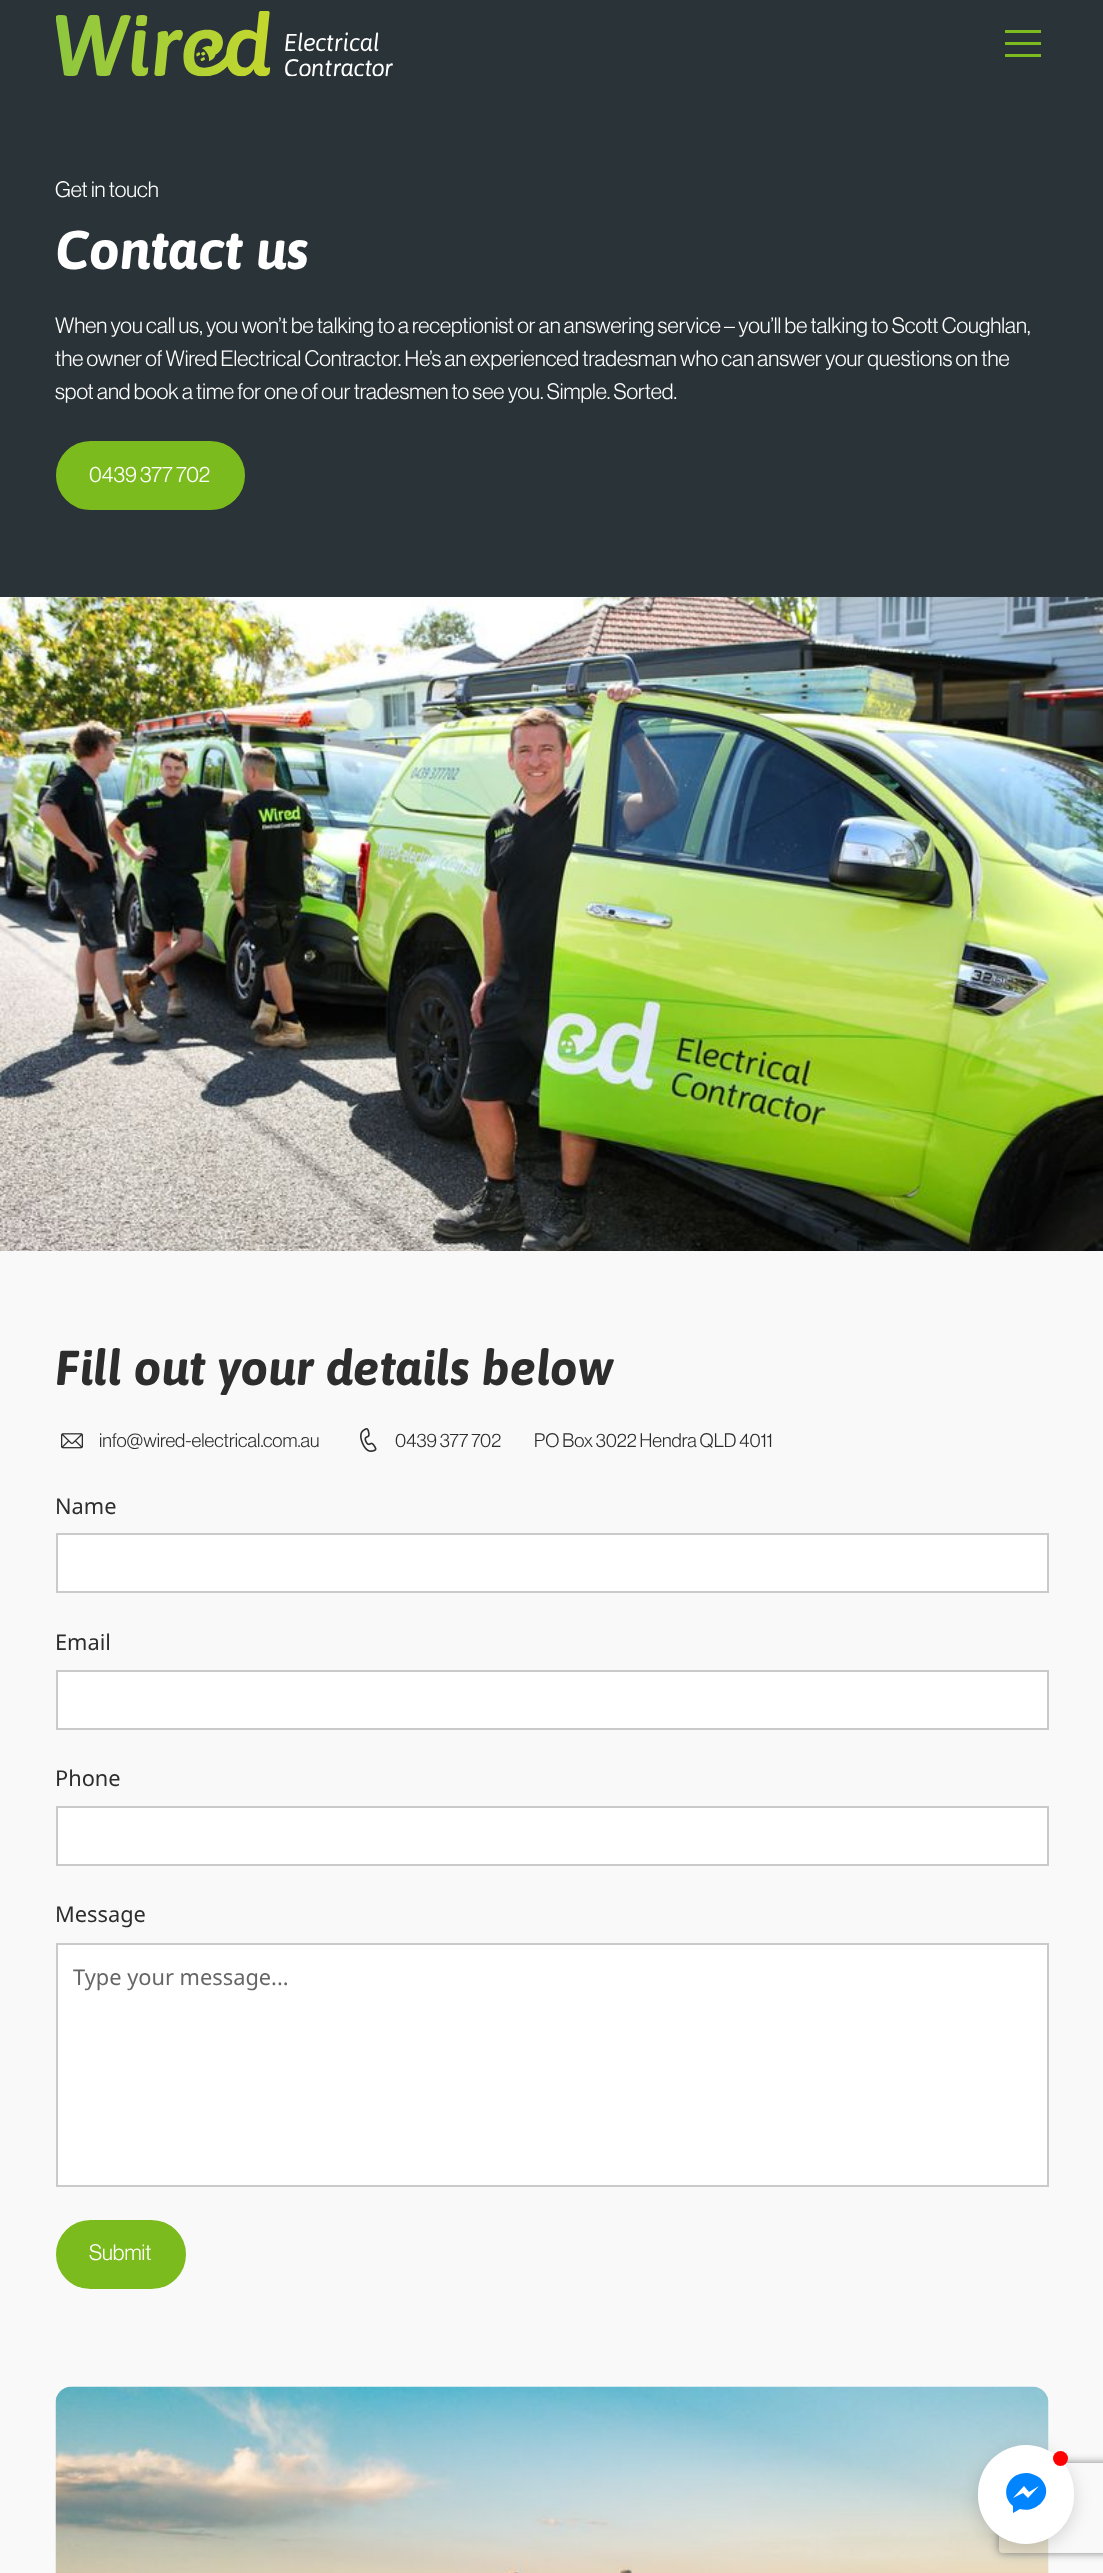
<svg xmlns="http://www.w3.org/2000/svg" width="1103" height="2573">
<style>
.a{font:21.8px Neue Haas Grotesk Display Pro;fill:#fff}
.b{font:italic bold 54.5px Asap;fill:#fff}
.c{font:italic bold 49px Asap;fill:#2d2d2d}
.d{font:19.1px Neue Haas Grotesk Display Pro;fill:#2d2d2d}
.e{font:21.8px Noto Sans;fill:#2d2d2d}
.f{font:21.8px Noto Sans;fill:#666}
</style>
<defs>
<clipPath id="clip1"><path d="M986 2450h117v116h-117zm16 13h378c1.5 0 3 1.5 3 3v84c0 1.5-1.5 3-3 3h-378c-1.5 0-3-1.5-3-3v-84c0-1.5 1.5-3 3-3z" clip-rule="evenodd"/></clipPath>
</defs>
<rect width="100%" height="100%" fill="#2a3337"/>
<image href="1.png" x="56" y="11" width="337" height="66"/>
<path fill="#7cbb1d" d="M1005 30h36v3H1005z"/>
<path fill="#7cbb1d" d="M1005 42h36v3H1005z"/>
<path fill="#7cbb1d" d="M1005 54h36v3H1005z"/>
<rect fill="#7cbb1d" stroke="#7cbb1d" stroke-width="2" x="57" y="442" width="187" height="67" rx="33.5"/>
<image href="2.png" x="0" y="597" width="1103" height="654"/>
<path fill="#f9f9f9" d="M0 1251h1103v1322H0z"/>
<image href="3.png" x="61" y="1433" width="22" height="16"/>
<image href="4.png" x="360" y="1428" width="17" height="24"/>
<path fill="#fff" stroke="#cacaca" stroke-width="2" d="M57 1534h991v58H57z"/>
<path fill="#fff" stroke="#cacaca" stroke-width="2" d="M57 1671h991v58H57z"/>
<path fill="#fff" stroke="#cacaca" stroke-width="2" d="M57 1807h991v58H57z"/>
<path fill="#fff" stroke="#cacaca" stroke-width="2" d="M57 1944h991v242H57z"/>
<rect fill="#7cbb1d" stroke="#7cbb1d" stroke-width="2" x="57" y="2221" width="128" height="67" rx="33.5"/>
<image href="5.png" x="55" y="2386" width="994" height="187"/>
<g clip-path="url(#clip1)">
<rect fill="#808080" filter="blur(4px)" x="999" y="2463" width="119" height="90" rx="3"/>
</g>
<rect fill="#00000026" filter="blur(9px)" x="978" y="2450" width="96" height="99" rx="48"/>
<rect fill="#fff" x="978" y="2445" width="96" height="99" rx="48"/>
<circle fill="#f00" cx="1060.5" cy="2458.5" r="7.5"/>
<path fill="#0084ff" fill-rule="evenodd" d="M1028 2498l-5-5l-10 5l11-12l5 6l10-6zm-2-25c-18 0-27 22-13 33v7l7-4c18 5 36-16 20-31c-4-3-9-5-14-5z"/>
<text class="a" x="55" y="197">Get in touch</text>
<text class="b" x="55" y="269">Contact us</text>
<text class="a" x="55" y="333">When you call us, you won’t be talking to a receptionist or an answering service – you’ll be talking to Scott Coughlan,</text>
<text class="a" x="55" y="366">the owner of Wired Electrical Contractor. He’s an experienced tradesman who can answer your questions on the</text>
<text class="a" x="55" y="399">spot and book a time for one of our tradesmen to see you. Simple. Sorted.</text>
<text class="a" x="89" y="482">0439 377 702</text>
<text class="c" x="55" y="1385">Fill out your details below</text>
<text class="d" x="99" y="1447">info@wired-electrical.com.au</text>
<text class="d" x="395" y="1447">0439 377 702</text>
<text class="d" x="534" y="1447">PO Box 3022 Hendra QLD 4011</text>
<text class="e" x="55" y="1514">Name</text>
<text class="e" x="55" y="1650">Email</text>
<text class="e" x="55" y="1786">Phone</text>
<text class="e" x="55" y="1922">Message</text>
<text class="f" x="73" y="1985">Type your message...</text>
<text class="a" x="89" y="2260">Submit</text>
</svg>
